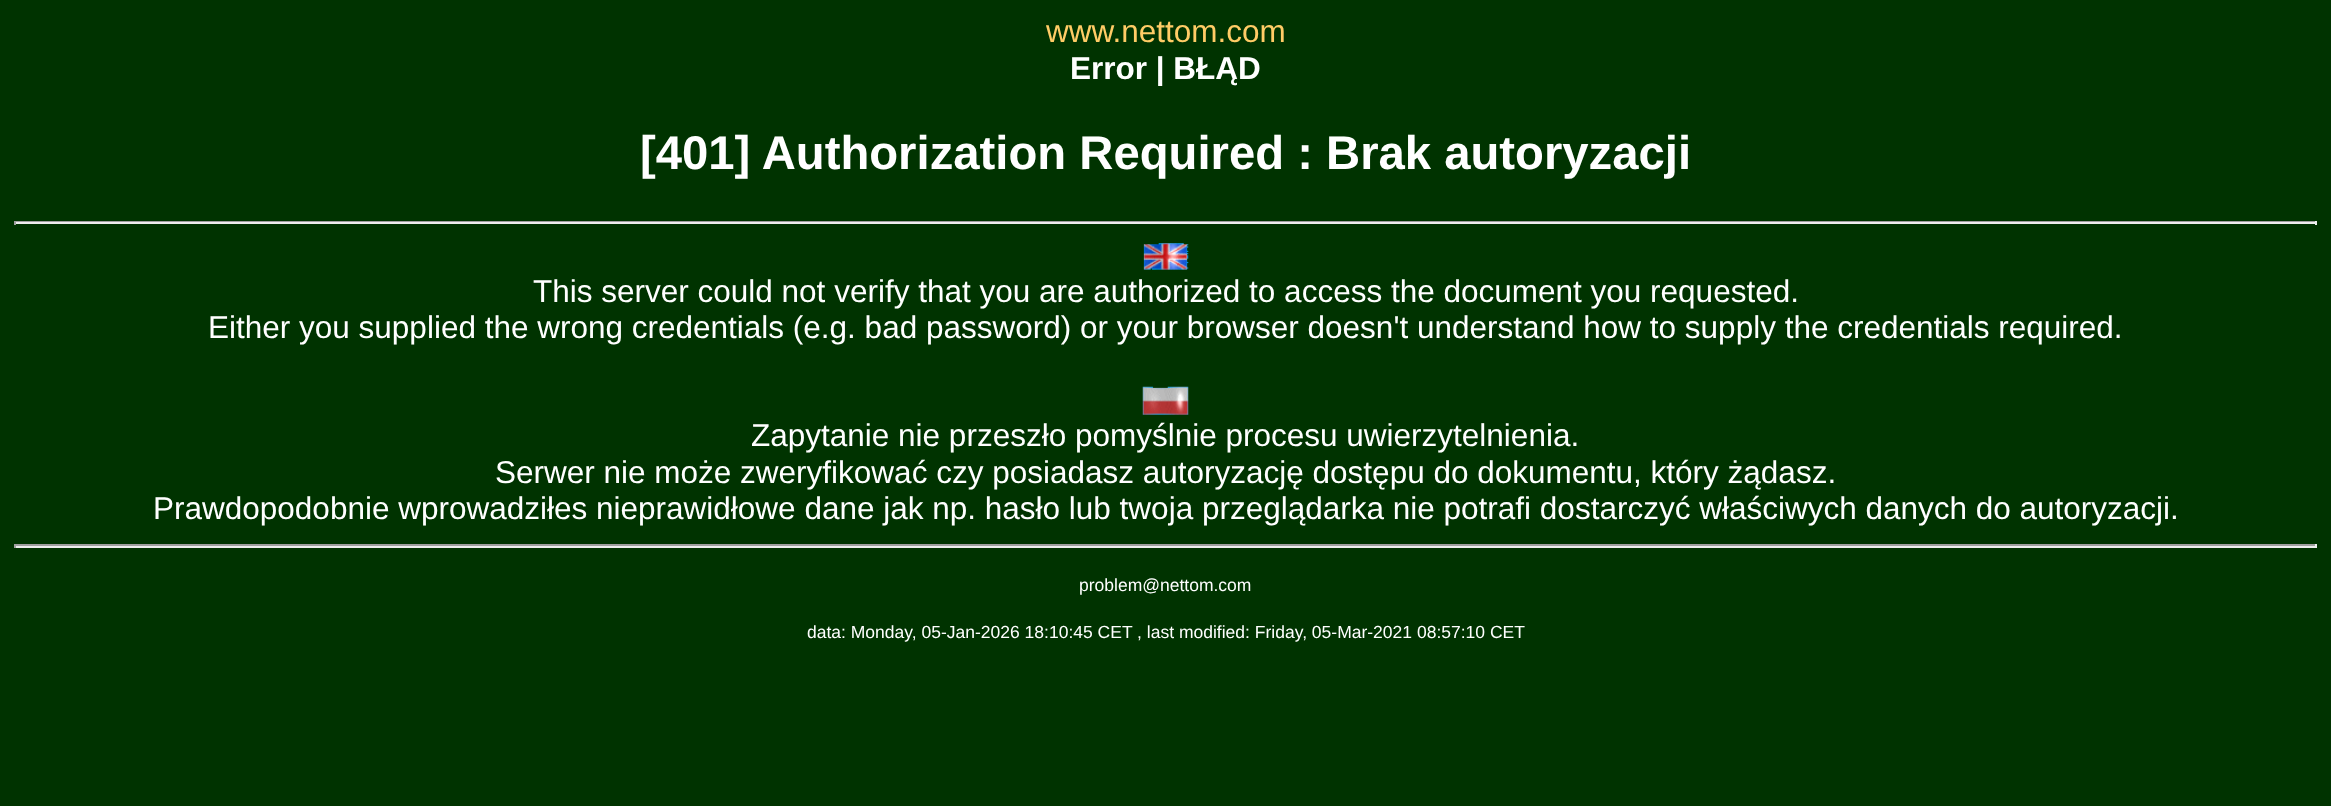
<svg xmlns="http://www.w3.org/2000/svg" width="2331" height="806">
<style>
.a{font:31.5px Liberation Sans;fill:#fc6}
.b{font:bold 31.5px Liberation Sans;fill:#fff}
.c{font:bold 47.25px Liberation Sans;fill:#fff}
.d{font:31.5px Liberation Sans;fill:#fff}
.e{font:17.5px Liberation Sans;fill:#fff}
</style>
<rect width="100%" height="100%" fill="#030"/>
<path fill="#9f9f9f" d="M14 221h2303v1H14z"/>
<path fill="#eee" d="M2315 221h2v4H2315z"/>
<path fill="#eee" d="M14 222h2303v2H14z"/>
<path fill="#9f9f9f" d="M14 221h2v4H14z"/>
<image href="1.png" x="1143" y="243" width="46" height="27"/>
<image href="2.png" x="1142" y="386" width="47" height="29"/>
<path fill="#9f9f9f" d="M14 544h2303v2H14z"/>
<path fill="#eee" d="M2315 544h2v4H2315z"/>
<path fill="#eee" d="M14 546h2303v2H14z"/>
<path fill="#9f9f9f" d="M14 544h2v4H14z"/>
<text class="a" x="1046" y="42">www.nettom.com</text>
<text class="b" x="1070" y="79">Error | BŁĄD</text>
<text class="c" x="640" y="169">[401] Authorization Required : Brak autoryzacji</text>
<text class="d" x="533" y="302">This server could not verify that you are authorized to access the document you requested.</text>
<text class="d" x="208" y="338">Either you supplied the wrong credentials (e.g. bad password) or your browser doesn't understand how to supply the credentials required.</text>
<text class="d" x="751" y="446">Zapytanie nie przeszło pomyślnie procesu uwierzytelnienia.</text>
<text class="d" x="495" y="483">Serwer nie może zweryfikować czy posiadasz autoryzację dostępu do dokumentu, który żądasz.</text>
<text class="d" x="153" y="519">Prawdopodobnie wprowadziłes nieprawidłowe dane jak np. hasło lub twoja przeglądarka nie potrafi dostarczyć właściwych danych do autoryzacji.</text>
<text class="e" x="1079" y="591">problem@nettom.com</text>
<text class="e" x="807" y="638">data: Monday, 05-Jan-2026 18:10:45 CET , last modified: Friday, 05-Mar-2021 08:57:10 CET</text>
</svg>
